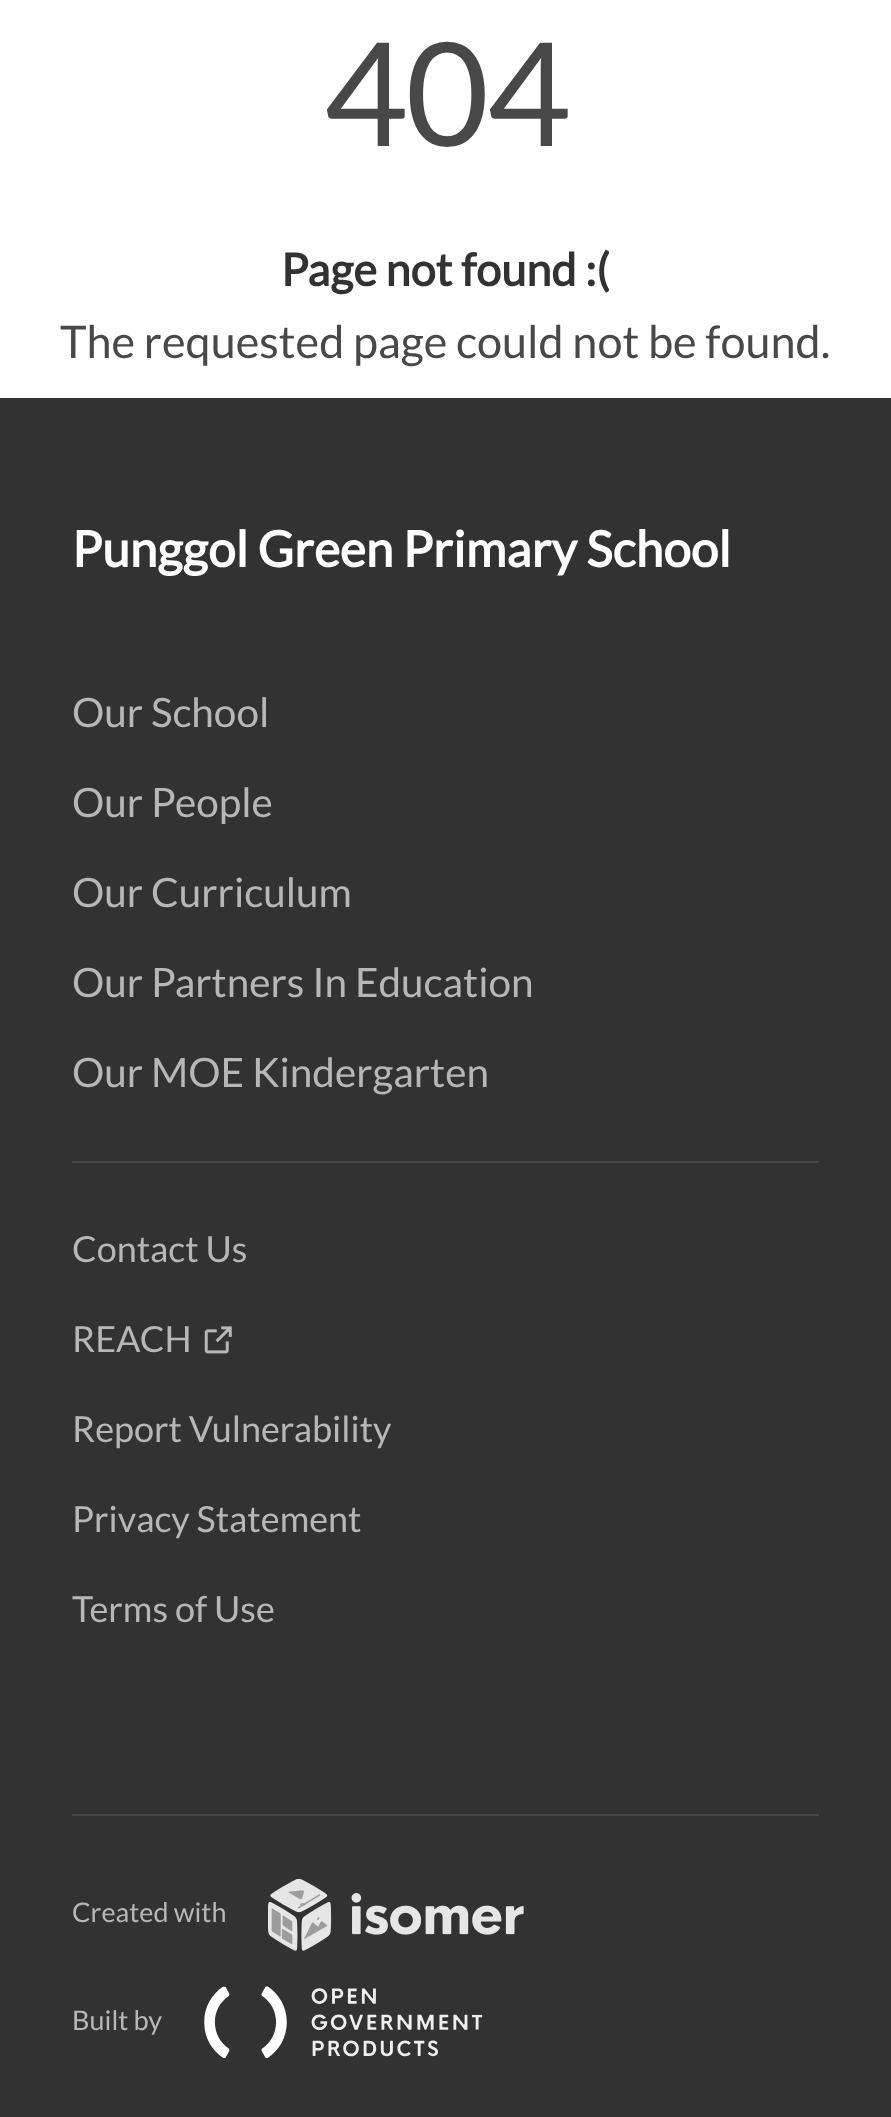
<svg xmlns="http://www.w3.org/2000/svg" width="891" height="2117">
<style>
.a{font:144px Lato;letter-spacing:-2px;fill:#484848}
.b{font:bold 45px Lato;fill:#323232}
.c{font:45px Lato;fill:#484848}
.d{font:bold 49.5px Lato;fill:#fff}
.e{font:40.5px Lato;fill:#b7b7b7}
.f{font:36px Lato;fill:#b7b7b7}
.g{font:27px Lato;fill:#b7b7b7}
</style>
<rect width="100%" height="100%" fill="#fff"/>
<path fill="#323232" d="M0 398h891v1719H0z"/>
<path fill="#484848" d="M72 1161h747v2H72z"/>
<image href="1.png" x="204" y="1326" width="28" height="28"/>
<path fill="#484848" d="M72 1814h747v2H72z"/>
<image href="2.png" x="268" y="1879" width="256" height="72"/>
<image href="3.png" x="204" y="1986" width="279" height="72"/>
<text class="a" x="324" y="146">404</text>
<text class="b" x="281" y="286">Page not found :(</text>
<text class="c" x="60" y="358">The requested page could not be found.</text>
<text class="d" x="72" y="567">Punggol Green Primary School</text>
<text class="e" x="72" y="727">Our School</text>
<text class="e" x="72" y="817">Our People</text>
<text class="e" x="72" y="907">Our Curriculum</text>
<text class="e" x="72" y="997">Our Partners In Education</text>
<text class="e" x="72" y="1087">Our MOE Kindergarten</text>
<text class="f" x="72" y="1262">Contact Us</text>
<text class="f" x="72" y="1352">REACH</text>
<text class="f" x="72" y="1442">Report Vulnerability</text>
<text class="f" x="72" y="1532">Privacy Statement</text>
<text class="f" x="72" y="1622">Terms of Use</text>
<text class="g" x="72" y="1922">Created with</text>
<text class="g" x="72" y="2030">Built by</text>
</svg>
